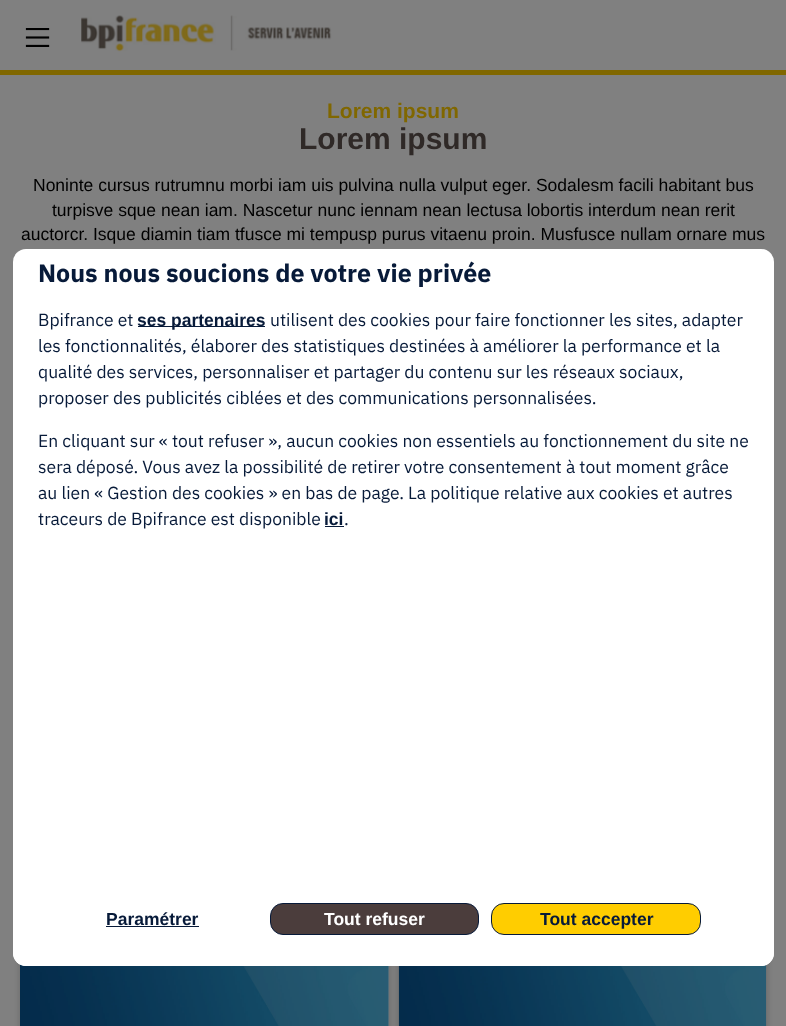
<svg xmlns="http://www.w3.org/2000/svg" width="786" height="1026">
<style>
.a{font:bold 21px Liberation Sans;fill:#806700}
.b{font:bold 30px Liberation Sans;fill:#2f2927}
.c{font:17.5px Liberation Sans;fill:#000}
.d{font:bold 25px IBM Plex Sans;fill:#071a39}
.e{font:17.5px IBM Plex Sans;fill:#071a39}
.f{font:bold 17.5px Liberation Sans;fill:#071a39}
.g{font:bold 17.5px Liberation Sans;fill:#fff}
</style>
<defs>
<linearGradient id="g1" gradientUnits="userSpaceOnUse" x1="393" y1="966" x2="393" y2="896"><stop offset="0.6" stop-color="#fff"/><stop offset="1" stop-color="#fff" stop-opacity="0"/></linearGradient>
</defs>
<rect width="100%" height="100%" fill="#808080"/>
<image href="1.png" x="25" y="28" width="25" height="19"/>
<path fill="#806700" d="M0 70h786v5H0z"/>
<image href="2.png" x="81" y="15" width="251" height="37"/>
<rect fill="#0000001a" filter="blur(2px)" x="18" y="951" width="373" height="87" rx="6"/>
<path fill="#808080" d="M388 966h1v60H388z"/>
<image href="3.png" x="20" y="964" width="369" height="62"/>
<rect fill="#0000001a" filter="blur(2px)" x="396" y="951" width="373" height="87" rx="6"/>
<image href="4.png" x="398" y="964" width="369" height="62"/>
<rect fill="#fff" x="13" y="249" width="761" height="717" rx="13"/>
<path fill="#071a39" d="M138 326h127v1H138z"/>
<path fill="#071a39" d="M325 526h19v1H325z"/>
<path fill="url(#g1)" d="M13 896h761v57c0 7-6 13-13 13h-735c-7 0-13-6-13-13z"/>
<path fill="#071a39" d="M106 926h93v1H106z"/>
<rect fill="#4b3d3c" stroke="#071a39" x="270.5" y="903.5" width="208" height="31" rx="12.5"/>
<rect fill="#ffcd00" stroke="#071a39" x="491.5" y="903.5" width="209" height="31" rx="12.5"/>
<text class="a" x="327" y="118">Lorem ipsum</text>
<text class="b" x="299" y="149">Lorem ipsum</text>
<text class="c" x="33" y="191">Noninte cursus rutrumnu morbi iam uis pulvina nulla vulput eger. Sodalesm facili habitant bus</text>
<text class="c" x="52" y="216">turpisve sque nean iam. Nascetur nunc iennam nean lectusa lobortis interdum nean rerit</text>
<text class="c" x="21" y="240">auctorcr. Isque diamin tiam tfusce mi tempusp purus vitaenu proin. Musfusce nullam ornare mus</text>
<text class="d" x="38" y="282">Nous nous soucions de votre vie privée</text>
<text class="e" x="38" y="326">Bpifrance et</text>
<text class="f" x="137" y="326">ses partenaires</text>
<text class="e" x="270" y="326">utilisent des cookies pour faire fonctionner les sites, adapter</text>
<text class="e" x="38" y="352">les fonctionnalités, élaborer des statistiques destinées à améliorer la performance et la</text>
<text class="e" x="38" y="378">qualité des services, personnaliser et partager du contenu sur les réseaux sociaux,</text>
<text class="e" x="38" y="404">proposer des publicités ciblées et des communications personnalisées.</text>
<text class="e" x="38" y="447">En cliquant sur « tout refuser », aucun cookies non essentiels au fonctionnement du site ne</text>
<text class="e" x="38" y="473">sera déposé. Vous avez la possibilité de retirer votre consentement à tout moment grâce</text>
<text class="e" x="38" y="499">au lien « Gestion des cookies » en bas de page. La politique relative aux cookies et autres</text>
<text class="e" x="38" y="525">traceurs de Bpifrance est disponible</text>
<text class="f" x="324" y="525">ici</text>
<text class="e" x="344" y="525">.</text>
<text class="f" x="106" y="925">Paramétrer</text>
<text class="g" x="324" y="925">Tout refuser</text>
<text class="f" x="540" y="925">Tout accepter</text>
</svg>
